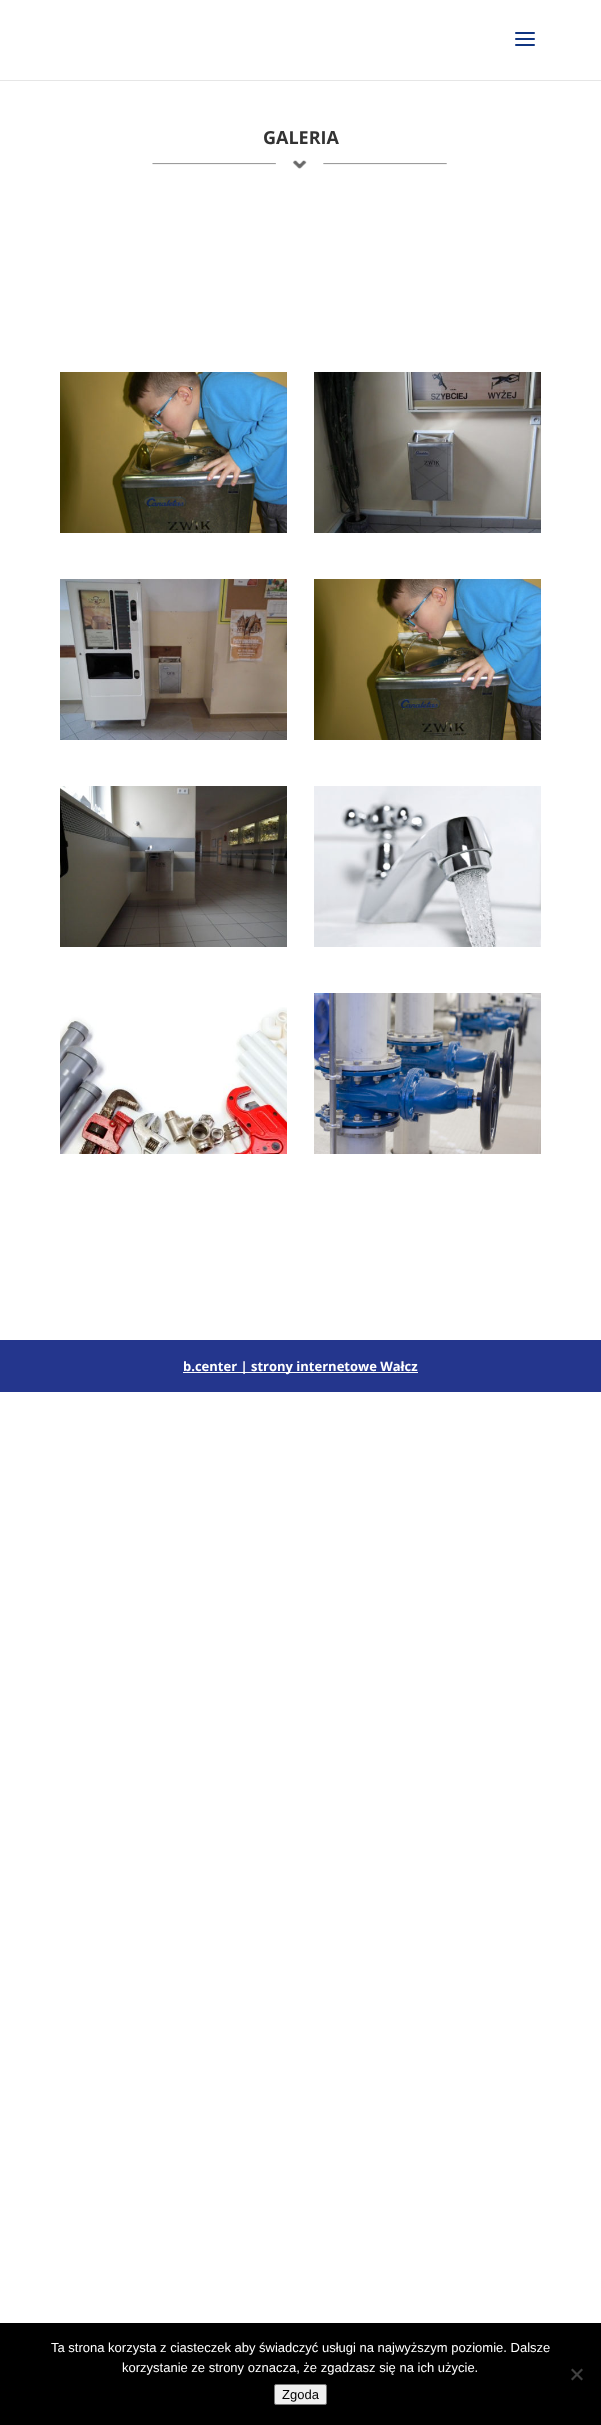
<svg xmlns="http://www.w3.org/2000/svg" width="601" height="2425">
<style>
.a{font:bold 18px Open Sans;fill:#333}
.b{font:bold 13px Open Sans;fill:#fff}
.c{font:13px Liberation Sans;fill:#fff}
.d{font:13px Liberation Sans;fill:#000}
</style>
<rect width="100%" height="100%" fill="#fff"/>
<path fill="#e6e6e6" d="M0 80h601v1H0z"/>
<image href="1.png" x="515" y="32" width="20" height="14"/>
<image href="2.png" x="152" y="160" width="295" height="9"/>
<image href="3.png" x="60" y="372" width="227" height="161"/>
<image href="4.png" x="314" y="372" width="227" height="161"/>
<image href="5.png" x="60" y="579" width="227" height="161"/>
<image href="6.png" x="314" y="579" width="227" height="161"/>
<image href="7.png" x="60" y="786" width="227" height="161"/>
<image href="8.png" x="314" y="786" width="227" height="161"/>
<image href="9.png" x="60" y="1007" width="227" height="147"/>
<image href="10.png" x="314" y="993" width="227" height="161"/>
<path fill="#24368d" d="M0 1340h601v52H0z"/>
<path fill="#fff" d="M183 1372h235v1H183z"/>
<path fill="#000" d="M0 2323h601v102H0z"/>
<path fill="#404040" d="M581.5 2368.5l1.5 1.5l-10.5 10.5l-1.5-1.5z"/>
<path fill="#404040" d="M571 2370l1.5-1.5l10.5 10.5l-1.5 1.5z"/>
<rect fill="#efefef" stroke="#767676" x="274.5" y="2384.5" width="52" height="20" rx="1.5"/>
<text class="a" x="263" y="144">GALERIA</text>
<text class="b" x="183" y="1371">b.center | strony internetowe Wałcz</text>
<text class="c" x="51" y="2352">Ta strona korzysta z ciasteczek aby świadczyć usługi na najwyższym poziomie. Dalsze</text>
<text class="c" x="122" y="2372">korzystanie ze strony oznacza, że zgadzasz się na ich użycie.</text>
<text class="d" x="282" y="2399">Zgoda</text>
</svg>
